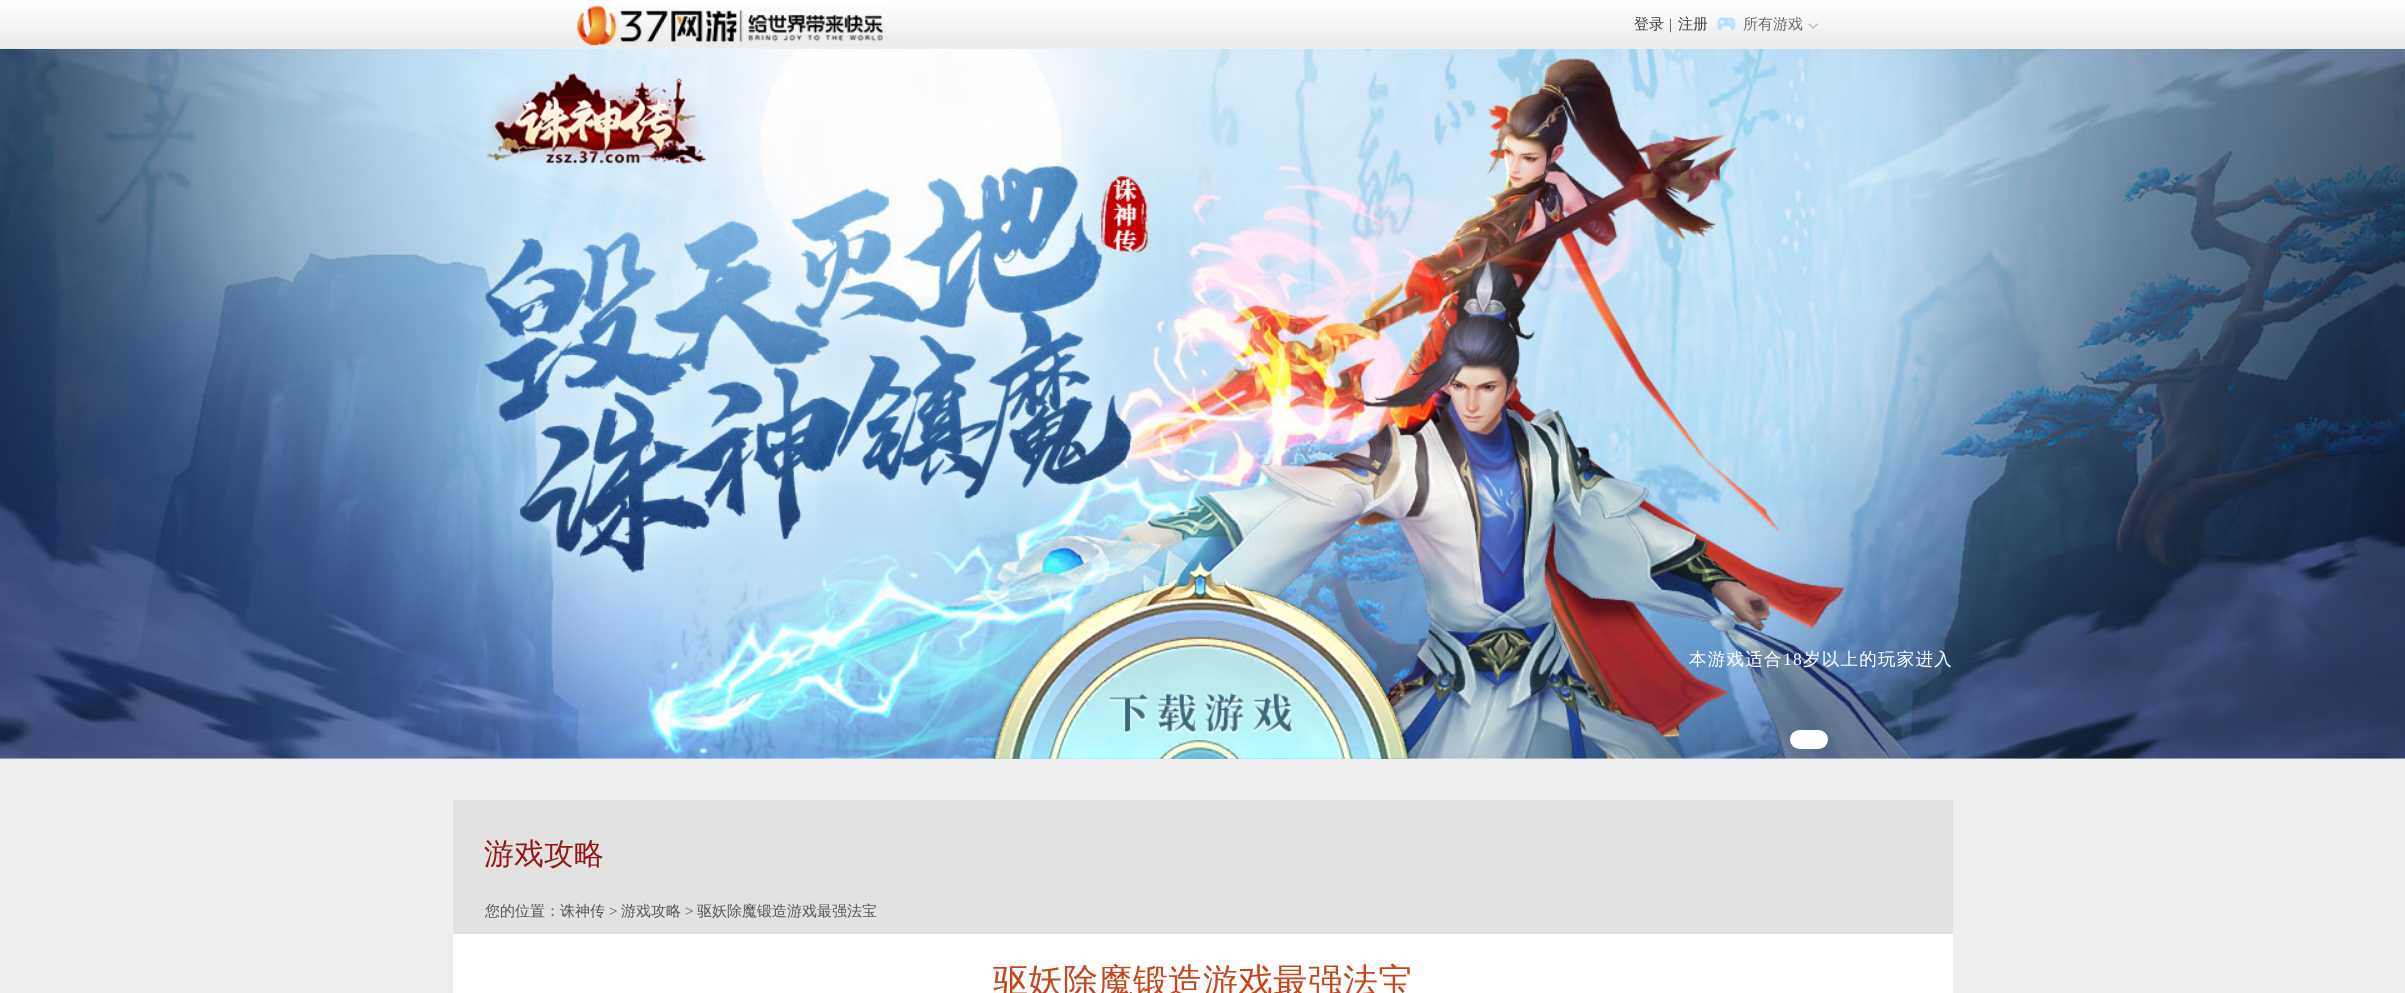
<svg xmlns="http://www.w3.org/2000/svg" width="2405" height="993">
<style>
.a{font:500 15px WenQuanYi Zen Hei;fill:#3c3c3c}
.b{font:15px Liberation Serif;fill:#3c3c3c}
.c{font:500 15px WenQuanYi Zen Hei;fill:#6c6c6c}
.d{font:500 17.5px WenQuanYi Zen Hei;letter-spacing:1.25px;fill:#fff}
.e{font:17.5px Liberation Serif;letter-spacing:1.25px;fill:#fff}
.f{font:500 30px WenQuanYi Zen Hei;fill:#961414}
.g{font:500 15px WenQuanYi Zen Hei;fill:#575757}
.h{font:15px Liberation Serif;fill:#575757}
.i{font:500 35px WenQuanYi Zen Hei;fill:#c4471e}
</style>
<rect width="100%" height="100%" fill="#eee"/>
<path fill="#f5f5f5" d="M0 47h2405v1H0z"/>
<image href="1.png" x="0" y="0" width="2405" height="48"/>
<image href="2.png" x="577" y="0" width="308" height="48"/>
<image href="3.png" x="1717" y="17" width="19" height="15"/>
<image href="4.png" x="1808" y="23" width="10" height="6"/>
<image href="5.png" x="0" y="48" width="2405" height="711"/>
<rect fill="#fff" x="1790" y="730" width="38" height="19" rx="9.5"/>
<image href="6.png" x="486" y="73" width="221" height="91"/>
<image href="7.png" x="990" y="561" width="422" height="198"/>
<path fill="#e3e2e2" d="M453 800h1500v134H453z"/>
<path fill="#fff" d="M453 934h1500v59H453z"/>
<text class="a" x="1634" y="29">登录</text>
<text class="b" x="1669" y="29">|</text>
<text class="a" x="1678" y="29">注册</text>
<text class="c" x="1743" y="29">所有游戏</text>
<text class="d" x="1689" y="665">本游戏适合</text>
<text class="e" x="1783" y="665">18</text>
<text class="d" x="1803" y="665">岁以上的玩家进入</text>
<text class="f" x="484" y="864">游戏攻略</text>
<text class="g" x="485" y="916">您的位置：诛神传</text>
<text class="h" x="609" y="916">&gt;</text>
<text class="g" x="621" y="916">游戏攻略</text>
<text class="h" x="685" y="916">&gt;</text>
<text class="g" x="697" y="916">驱妖除魔锻造游戏最强法宝</text>
<text class="i" x="993" y="993">驱妖除魔锻造游戏最强法宝</text>
</svg>
